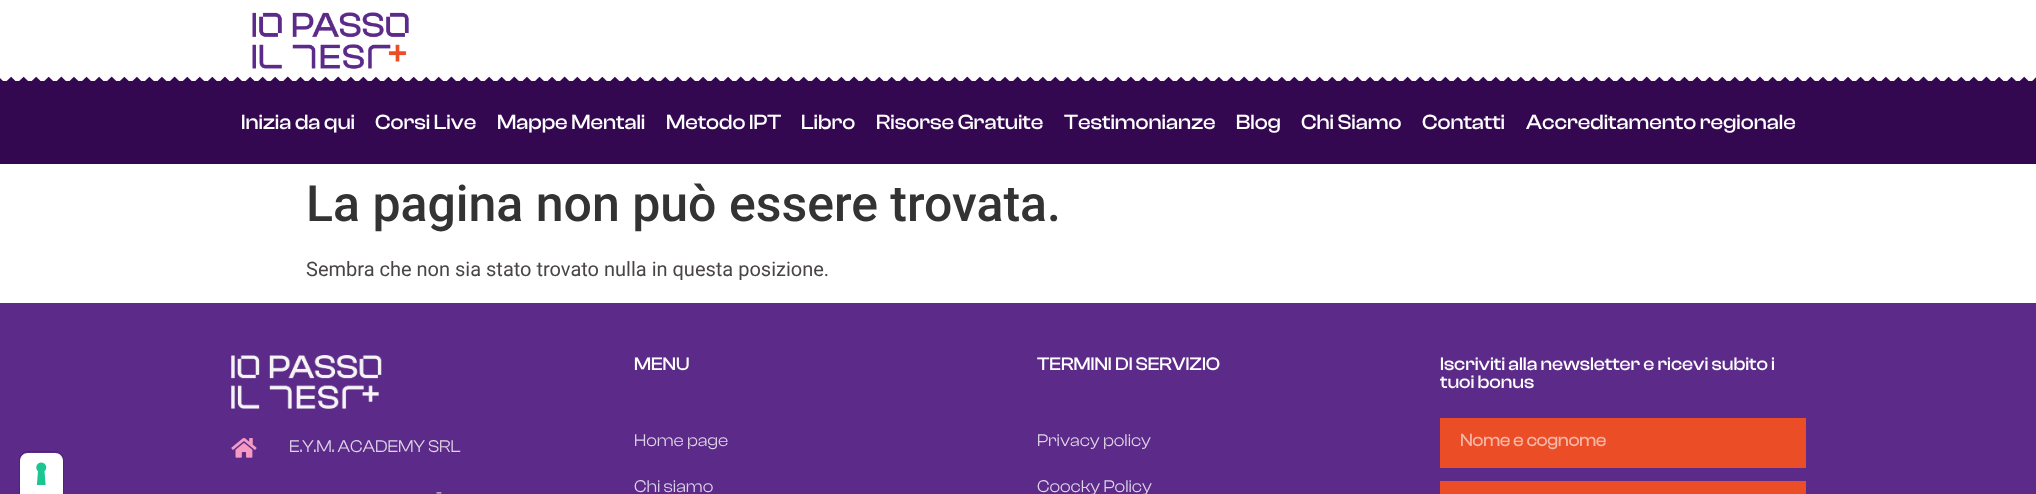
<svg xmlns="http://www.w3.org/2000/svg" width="2036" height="494">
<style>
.a{font:500 21.25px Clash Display;fill:#fff}
.b{font:500 50px Roboto;fill:#333}
.c{font:20px Roboto;fill:#4a4545}
.d{font:500 18.75px Clash Display;fill:#fff}
.e{font:17.5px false;fill:#ded4e7}
.f{font:bold 17.5px false;fill:#f7b8a9}
</style>
<rect width="100%" height="100%" fill="#fff"/>
<image href="1.png" x="252" y="12" width="157" height="57"/>
<image href="2.png" x="0" y="76" width="2036" height="5"/>
<path fill="#330850" d="M0 81h2036v83H0z"/>
<path fill="#5c2a88" d="M0 303h2036v191H0z"/>
<path fill="none" stroke="#4e2474" d="M28 451.5h27c4.5 0 8.5 4 8.5 8.5v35.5h-44v-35.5c0-4.5 4-8.5 8.5-8.5z"/>
<path fill="#fff" d="M28 453h27c4.5 0 8 3.5 8 8v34h-43v-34c0-4.5 3.5-8 8-8z"/>
<image href="3.png" x="36" y="462" width="11" height="23"/>
<path fill="#eb4e27" d="M1440 418h366v50H1440z"/>
<path fill="#eb4e27" d="M1440 481h366v13H1440z"/>
<image href="4.png" x="231" y="355" width="151" height="54"/>
<image href="5.png" x="231" y="438" width="26" height="20"/>
<text class="a" x="241" y="129">Inizia da qui</text>
<text class="a" x="375" y="129">Corsi Live</text>
<text class="a" x="497" y="129">Mappe Mentali</text>
<text class="a" x="666" y="129">Metodo IPT</text>
<text class="a" x="801" y="129">Libro</text>
<text class="a" x="876" y="129">Risorse Gratuite</text>
<text class="a" x="1064" y="129">Testimonianze</text>
<text class="a" x="1236" y="129">Blog</text>
<text class="a" x="1301" y="129">Chi Siamo</text>
<text class="a" x="1422" y="129">Contatti</text>
<text class="a" x="1526" y="129">Accreditamento regionale</text>
<text class="b" x="306" y="221">La pagina non può essere trovata.</text>
<text class="c" x="306" y="276">Sembra che non sia stato trovato nulla in questa posizione.</text>
<text class="d" x="634" y="370">MENU</text>
<text class="e" x="634" y="446">Home page</text>
<text class="e" x="634" y="492">Chi siamo</text>
<text class="d" x="1037" y="370">TERMINI DI SERVIZIO</text>
<text class="e" x="1037" y="446">Privacy policy</text>
<text class="e" x="1037" y="492">Coocky Policy</text>
<text class="d" x="1440" y="370">Iscriviti alla newsletter e ricevi subito i</text>
<text class="d" x="1440" y="388">tuoi bonus</text>
<text class="f" x="1460" y="446">Nome e cognome</text>
<text class="e" x="289" y="452">E.Y.M. ACADEMY SRL</text>
<text class="e" x="436" y="498">-</text>
</svg>
